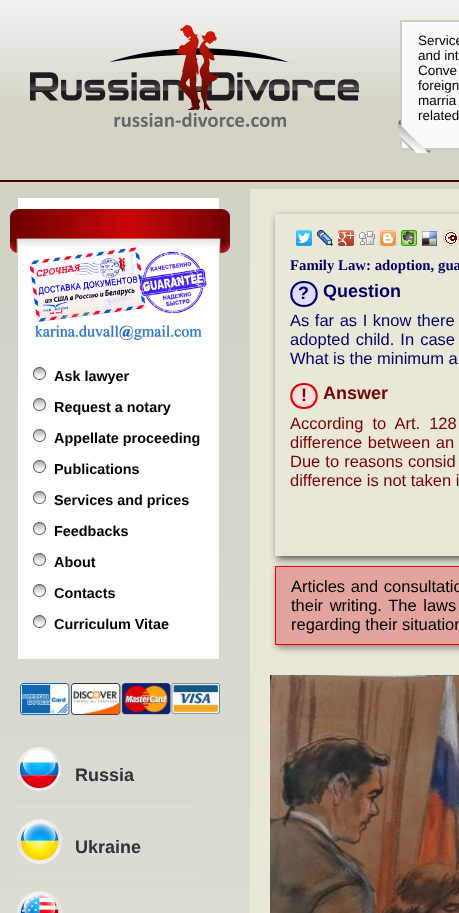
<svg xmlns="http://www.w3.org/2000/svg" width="459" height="913">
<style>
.a{font:13.5px Liberation Sans;fill:#000}
.b{font:bold 14.4px Liberation Sans;fill:#000}
.c{font:bold 18px Liberation Sans;fill:#333}
.d{font:bold 14.8px Liberation Serif;fill:#006}
.e{font:bold 18px Liberation Sans;fill:#006}
.f{font:16.5px Liberation Sans;fill:#006}
.g{font:bold 18px Liberation Sans;fill:#790302}
.h{font:16.5px Liberation Sans;fill:#790302}
.i{font:16.5px Liberation Sans;fill:#000}
</style>
<defs>
<linearGradient id="g1" gradientUnits="userSpaceOnUse" x1="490" y1="0" x2="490" y2="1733"><stop offset="0" stop-color="#cdcfc2"/><stop offset="1" stop-color="#e8e7e2"/></linearGradient>
<clipPath id="clip1"><path d="M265 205h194v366h-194zm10 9h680v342h-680z" clip-rule="evenodd"/></clipPath>
</defs>
<rect width="100%" height="100%" fill="#fff"/>
<path fill="url(#g1)" d="M0 190h250v723H0z"/>
<path fill="#d5d3c6" d="M0 96h459v94H0z"/>
<image href="1.png" x="0" y="0" width="459" height="96"/>
<image href="2.png" x="30" y="25" width="329" height="102"/>
<path fill="#fafafa" stroke="#ccc" stroke-width="2" d="M401 21h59v128H401z"/>
<image href="3.png" x="398" y="120" width="33" height="33"/>
<path fill="#4a0701" d="M0 180h459v2H0z"/>
<path fill="#fff" d="M18 198h201v461H18z"/>
<image href="5.png" x="29" y="247" width="178" height="94"/>
<image href="4.png" x="10" y="209" width="220" height="44"/>
<image href="6.png" x="33" y="367" width="13" height="13"/>
<image href="6.png" x="33" y="398" width="13" height="13"/>
<image href="6.png" x="33" y="429" width="13" height="13"/>
<image href="6.png" x="33" y="460" width="13" height="13"/>
<image href="6.png" x="33" y="491" width="13" height="13"/>
<image href="6.png" x="33" y="522" width="13" height="13"/>
<image href="6.png" x="33" y="553" width="13" height="13"/>
<image href="6.png" x="33" y="584" width="13" height="13"/>
<image href="6.png" x="33" y="615" width="13" height="13"/>
<image href="7.png" x="20" y="683" width="200" height="32"/>
<image href="8.png" x="17" y="747" width="45" height="44"/>
<path fill="#dfdfdf" d="M15 806h180v1H15z"/>
<image href="9.png" x="17" y="819" width="45" height="45"/>
<path fill="#dfdfdf" d="M15 878h180v1H15z"/>
<image href="10.png" x="17" y="891" width="45" height="22"/>
<path fill="#e9e7d8" d="M250 189h209v724H250z"/>
<g clip-path="url(#clip1)">
<path fill="#555" filter="blur(3.5px)" d="M277 217h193v342H277z"/>
</g>
<image href="11.png" x="296" y="230" width="16" height="16"/>
<image href="12.png" x="317" y="230" width="16" height="16"/>
<image href="13.png" x="338" y="230" width="16" height="16"/>
<image href="14.png" x="359" y="231" width="16" height="14"/>
<image href="15.png" x="380" y="230" width="16" height="16"/>
<image href="16.png" x="401" y="230" width="16" height="16"/>
<image href="17.png" x="422" y="231" width="15" height="15"/>
<image href="18.png" x="443" y="230" width="16" height="16"/>
<ellipse fill="#ddf" cx="304" cy="294" rx="14" ry="13"/>
<path fill="none" stroke="#006" stroke-width="2" d="M304 282c17 0 17 24 0 24c-17 0-17-24 0-24z"/>
<ellipse fill="#fedddd" cx="304" cy="396" rx="14" ry="13"/>
<path fill="none" stroke="#d00" stroke-width="2" d="M304 384c17 0 17 24 0 24c-17 0-17-24 0-24z"/>
<path fill="#00000066" filter="blur(3.5px)" d="M277 569h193v79H277z"/>
<path fill="#e2a59e" stroke="#e00" d="M275.5 566.5h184v78H275.5z"/>
<image href="19.png" x="270" y="675" width="189" height="238"/>
<text class="a" x="418" y="45">Service</text>
<text class="a" x="418" y="60">and int</text>
<text class="a" x="418" y="75">Conve</text>
<text class="a" x="418" y="90">foreign</text>
<text class="a" x="418" y="105">marria</text>
<text class="a" x="418" y="120">related</text>
<text class="b" x="54" y="381">Ask lawyer</text>
<text class="b" x="54" y="412">Request a notary</text>
<text class="b" x="54" y="443">Appellate proceeding</text>
<text class="b" x="54" y="474">Publications</text>
<text class="b" x="54" y="505">Services and prices</text>
<text class="b" x="54" y="536">Feedbacks</text>
<text class="b" x="54" y="567">About</text>
<text class="b" x="54" y="598">Contacts</text>
<text class="b" x="54" y="629">Curriculum Vitae</text>
<text class="c" x="75" y="781">Russia</text>
<text class="c" x="75" y="853">Ukraine</text>
<text class="d" x="290" y="270">Family Law: adoption, gua</text>
<text class="e" x="298" y="299">?</text>
<text class="e" x="323" y="297">Question</text>
<text class="f" x="290" y="326" word-spacing="1">As far as I know there</text>
<text class="f" x="290" y="345" word-spacing="1.5">adopted child. In case</text>
<text class="f" x="290" y="364">What is the minimum a</text>
<text class="g" x="301" y="401">!</text>
<text class="g" x="323" y="399">Answer</text>
<text class="h" x="290" y="429" word-spacing="4.5">According to Art. 128</text>
<text class="h" x="290" y="448" word-spacing="1">difference between an</text>
<text class="h" x="290" y="467" word-spacing="0.5">Due to reasons consid</text>
<text class="h" x="290" y="486">difference is not taken i</text>
<text class="i" x="291" y="592" word-spacing="1">Articles and consultatio</text>
<text class="i" x="291" y="611" word-spacing="2">their writing. The laws</text>
<text class="i" x="291" y="630">regarding their situation</text>
</svg>
